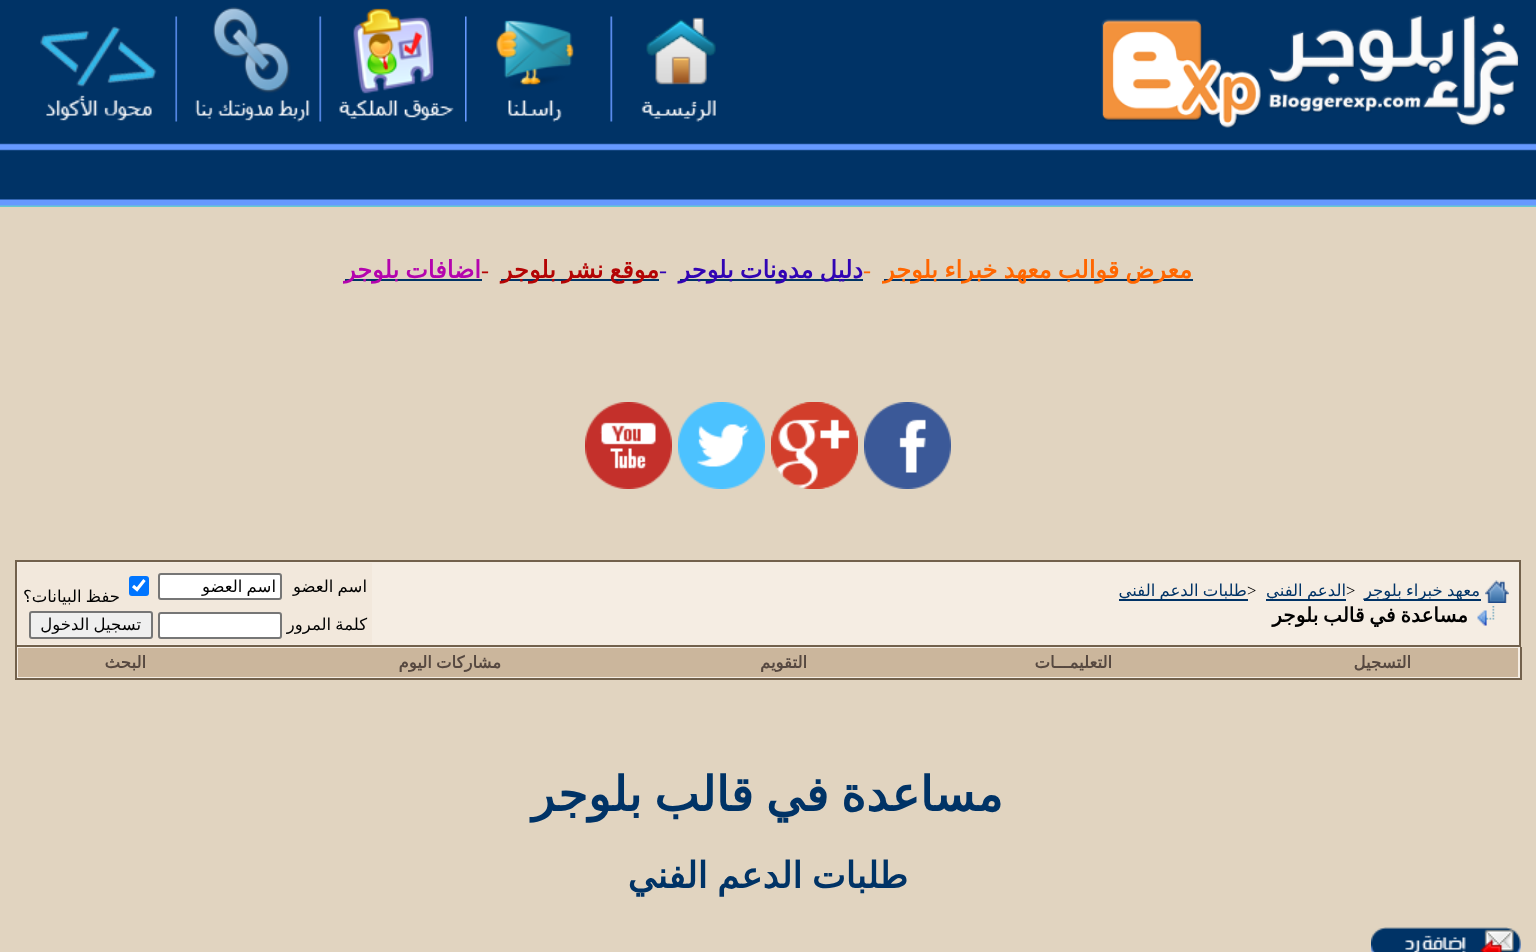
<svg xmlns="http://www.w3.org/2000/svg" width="1536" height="952">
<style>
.a{font:bold 24px DejaVu Sans;direction:rtl;fill:#f60}
.b{font:24px Liberation Serif;fill:#f60}
.c{font:bold 24px DejaVu Sans;direction:rtl;fill:#3104b4}
.d{font:24px Liberation Serif;fill:#3104b4}
.e{font:bold 24px DejaVu Sans;direction:rtl;fill:#b40404}
.f{font:24px Liberation Serif;fill:#b40404}
.g{font:bold 24px DejaVu Sans;direction:rtl;fill:#b404ae}
.h{font:16.5px DejaVu Sans;direction:rtl;fill:#036}
.i{font:16.5px Liberation Serif;fill:#000}
.j{font:bold 20px DejaVu Sans;direction:rtl;fill:#000}
.k{font:16.5px DejaVu Sans;direction:rtl;fill:#000}
.l{font:bold 16.5px DejaVu Sans;direction:rtl;fill:#564840}
.m{font:bold 48px DejaVu Sans;direction:rtl;fill:#036}
.n{font:bold 36px DejaVu Sans;direction:rtl;fill:#036}
</style>
<rect width="100%" height="100%" fill="#e1d4c0"/>
<image href="1.png" x="0" y="0" width="1536" height="207"/>
<image href="2.png" x="1101" y="15" width="419" height="113"/>
<image href="3.png" x="610" y="16" width="106" height="106"/>
<image href="4.png" x="465" y="16" width="109" height="106"/>
<image href="5.png" x="319" y="8" width="135" height="114"/>
<image href="6.png" x="175" y="7" width="135" height="115"/>
<image href="7.png" x="40" y="26" width="117" height="95"/>
<path fill="#036" d="M884 279h309v2H884z"/>
<path fill="#036" d="M680 279h183v2H680z"/>
<path fill="#036" d="M501 279h158v2H501z"/>
<path fill="#036" d="M345 279h137v2H345z"/>
<image href="8.png" x="864" y="402" width="87" height="87"/>
<image href="9.png" x="771" y="402" width="87" height="87"/>
<image href="10.png" x="678" y="402" width="87" height="87"/>
<image href="11.png" x="585" y="402" width="87" height="87"/>
<path fill="#f5ede3" stroke="#72614c" stroke-width="2" d="M16 561h1504v85H16z"/>
<image href="12.png" x="1485" y="580" width="24" height="23"/>
<path fill="#036" d="M1364 599h117v2H1364z"/>
<path fill="#036" d="M1266 599h80v2H1266z"/>
<path fill="#036" d="M1119 599h129v2H1119z"/>
<image href="13.png" x="1477" y="606" width="18" height="20"/>
<path fill="#f2e8dc" d="M18 563h354v81H18z"/>
<rect fill="#fff" stroke="#767676" stroke-width="2" x="159" y="574" width="122" height="25" rx="2"/>
<rect fill="#0075ff" x="129" y="576" width="20" height="20" rx="3"/>
<path fill="none" stroke="#fff" stroke-width="3.1" d="M133 586l4 3.5l7.5-9.5"/>
<rect fill="#fff" stroke="#767676" stroke-width="2" x="159" y="613" width="122" height="25" rx="2"/>
<rect fill="#efefef" stroke="#767676" stroke-width="2" x="30" y="612" width="122" height="26" rx="2"/>
<path fill="#f5ede3" d="M17 647h1503v31H17z"/>
<path fill="#72614c" d="M1520 647h2v33H1520z"/>
<path fill="#72614c" d="M15 678h1506v2H15z"/>
<path fill="#72614c" d="M15 647h2v33H15z"/>
<path fill="#cbb69c" d="M18 648h1500v29H18z"/>
<image href="14.png" x="1371" y="927" width="150" height="25"/>
<text class="a" x="1192" y="278" word-spacing="-1.5">معرض قوالب معهد خبراء بلوجر</text>
<text class="b" x="863" y="278">-</text>
<text class="c" x="863" y="278" word-spacing="-1.5">دليل مدونات بلوجر</text>
<text class="d" x="659" y="278">-</text>
<text class="e" x="659" y="278" word-spacing="-1.5">موقع نشر بلوجر</text>
<text class="f" x="481" y="278">-</text>
<text class="g" x="481" y="278" word-spacing="-1.5">اضافات بلوجر</text>
<text class="h" x="1480" y="596" word-spacing="-1">معهد خبراء بلوجر</text>
<text class="i" x="1346" y="596">&gt;</text>
<text class="h" x="1346" y="596" word-spacing="-1">الدعم الفني</text>
<text class="i" x="1247" y="596">&gt;</text>
<text class="h" x="1247" y="596" word-spacing="-1">طلبات الدعم الفني</text>
<text class="j" x="1468" y="622" word-spacing="-1.5">مساعدة في قالب بلوجر</text>
<text class="k" x="367" y="592" word-spacing="-1">اسم العضو</text>
<text class="k" x="276" y="592" word-spacing="-1">اسم العضو</text>
<text class="k" x="120" y="602" word-spacing="-1">حفظ البيانات؟</text>
<text class="k" x="367" y="630" word-spacing="-1">كلمة المرور</text>
<text class="k" x="141" y="630" word-spacing="-1">تسجيل الدخول</text>
<text class="l" x="1411" y="668">التسجيل</text>
<text class="l" x="1112" y="668">التعليمـــات</text>
<text class="l" x="807" y="668">التقويم</text>
<text class="l" x="501" y="668" word-spacing="-1">مشاركات اليوم</text>
<text class="l" x="146" y="668">البحث</text>
<text class="m" x="1003" y="811" word-spacing="-3">مساعدة في قالب بلوجر</text>
<text class="n" x="908" y="888" word-spacing="-2">طلبات الدعم الفني</text>
</svg>
